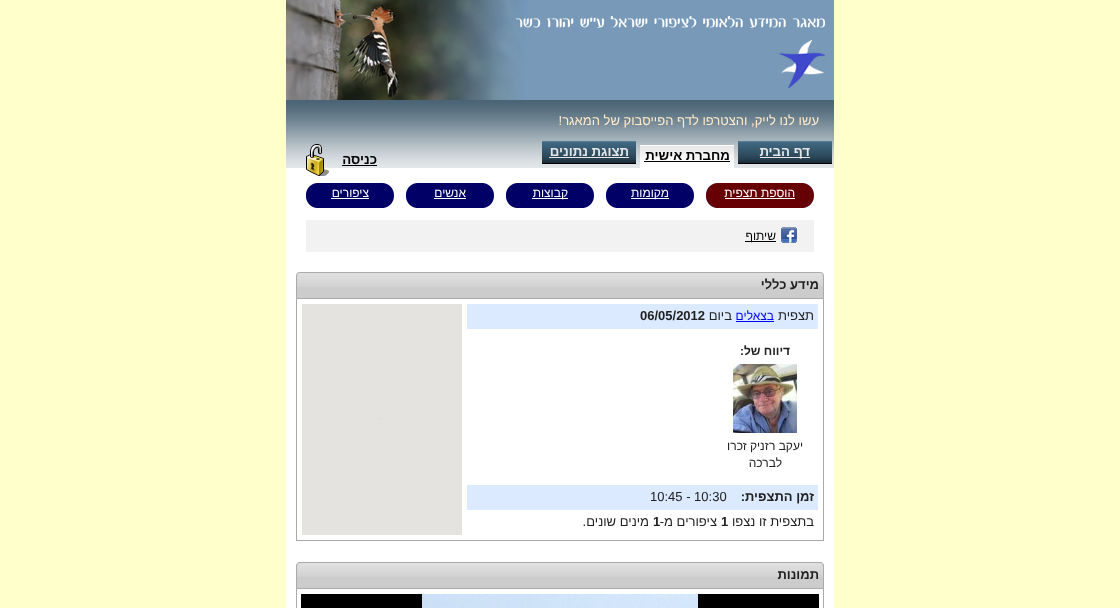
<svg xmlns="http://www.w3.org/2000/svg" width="1120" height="608">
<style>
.a{font:13px Liberation Sans;direction:rtl;fill:#ffebcd}
.b{font:bold 13.25px Liberation Sans;direction:rtl;fill:#e5e5e5}
.c{font:bold 13.25px Liberation Sans;direction:rtl;fill:#000}
.d{font:12px Liberation Sans;direction:rtl;fill:#fff}
.e{font:12px Liberation Sans;direction:rtl;fill:#000}
.f{font:bold 13px Liberation Sans;direction:rtl;fill:#212121}
.g{font:13px Liberation Sans;direction:rtl;fill:#212121}
.h{font:12px Liberation Sans;direction:rtl;fill:#00f}
.i{font:bold 13px Liberation Sans;fill:#212121}
.j{font:bold 12px Liberation Sans;direction:rtl;fill:#212121}
.k{font:12px Liberation Sans;direction:rtl;fill:#212121}
.l{font:13px Liberation Sans;fill:#212121}
</style>
<rect width="100%" height="100%" fill="#ffc"/>
<path fill="#fff" d="M286 168h548v440H286z"/>
<image href="1.png" x="286" y="0" width="548" height="100"/>
<image href="2.png" x="286" y="100" width="548" height="68"/>
<image href="3.png" x="738" y="141" width="94" height="23"/>
<path fill="#e5e5e5" d="M760 157h50v1H760z"/>
<image href="4.png" x="640" y="145" width="94" height="23"/>
<path fill="#000" d="M644 161h86v1H644z"/>
<image href="3.png" x="542" y="141" width="94" height="23"/>
<path fill="#e5e5e5" d="M549 157h80v1H549z"/>
<path fill="#000" d="M342 165h35v1H342z"/>
<image href="5.png" x="306" y="144" width="24" height="32"/>
<image href="6.png" x="706" y="183" width="108" height="25"/>
<path fill="#fff" d="M725 198h70v1H725z"/>
<image href="7.png" x="606" y="183" width="88" height="25"/>
<path fill="#fff" d="M631 198h38v1H631z"/>
<image href="7.png" x="506" y="183" width="88" height="25"/>
<path fill="#fff" d="M532 198h36v1H532z"/>
<image href="7.png" x="406" y="183" width="88" height="25"/>
<path fill="#fff" d="M434 198h32v1H434z"/>
<image href="7.png" x="306" y="183" width="88" height="25"/>
<path fill="#fff" d="M331 198h38v1H331z"/>
<path fill="#f2f2f2" d="M306 220h508v32H306z"/>
<image href="8.png" x="781" y="227" width="16" height="16"/>
<path fill="#000" d="M745 241h31v1H745z"/>
<path fill="#ccc" d="M300 272h520c2 0 4 2 4 4v23h-528v-23c0-2 2-4 4-4z"/>
<image href="9.png" x="296" y="272" width="528" height="15"/>
<path fill="none" stroke="#aaa" d="M300 272.5h520c2 0 3.5 1.5 3.5 3.5v22.5h-527v-22.5c0-2 1.5-3.5 3.5-3.5z"/>
<path fill="#aaa" d="M823 299h1v242H823z"/>
<path fill="#aaa" d="M296 540h528v1H296z"/>
<path fill="#aaa" d="M296 299h1v242H296z"/>
<path fill="#dbeaff" d="M467 304h351v25H467z"/>
<path fill="#00f" d="M736 321h38v1H736z"/>
<image href="10.png" x="733" y="364" width="64" height="69"/>
<path fill="#dbeaff" d="M467 485h351v25H467z"/>
<image href="11.png" x="302" y="304" width="160" height="231"/>
<path fill="#ccc" d="M300 562h520c2 0 4 2 4 4v23h-528v-23c0-2 2-4 4-4z"/>
<image href="9.png" x="296" y="562" width="528" height="15"/>
<path fill="none" stroke="#aaa" d="M300 562.5h520c2 0 3.5 1.5 3.5 3.5v22.5h-527v-22.5c0-2 1.5-3.5 3.5-3.5z"/>
<path fill="#aaa" d="M823 589h1v19H823z"/>
<path fill="#aaa" d="M296 589h1v19H296z"/>
<path fill="#000" d="M301 594h518v14H301z"/>
<image href="12.png" x="422" y="594" width="276" height="14"/>
<text class="a" x="819" y="125">עשו לנו לייק, והצטרפו לדף הפייסבוק של המאגר!</text>
<text class="b" x="810" y="156">דף הבית</text>
<text class="c" x="730" y="160">מחברת אישית</text>
<text class="b" x="629" y="156">תצוגת נתונים</text>
<text class="c" x="377" y="164">כניסה</text>
<text class="d" x="795" y="197">הוספת תצפית</text>
<text class="d" x="669" y="197">מקומות</text>
<text class="d" x="568" y="197">קבוצות</text>
<text class="d" x="466" y="197">אנשים</text>
<text class="d" x="369" y="197">ציפורים</text>
<text class="e" x="776" y="240">שיתוף</text>
<text class="f" x="819" y="289">מידע כללי</text>
<text class="g" x="814" y="320">תצפית</text>
<text class="h" x="774" y="320">בצאלים</text>
<text class="g" x="732" y="320">ביום</text>
<text class="i" x="640" y="320">06/05/2012</text>
<text class="j" x="790" y="355">דיווח של:</text>
<text class="k" x="803" y="450">יעקב רזניק זכרו</text>
<text class="k" x="782" y="467">לברכה</text>
<text class="f" x="814" y="501">זמן התצפית:</text>
<text class="l" x="650" y="501">10:45 - 10:30</text>
<text class="g" x="814" y="526">בתצפית זו נצפו</text>
<text class="i" x="721" y="526">1</text>
<text class="g" x="717" y="526">ציפורים מ-</text>
<text class="i" x="653" y="526">1</text>
<text class="g" x="649" y="526">מינים שונים.</text>
<text class="f" x="819" y="579">תמונות</text>
</svg>
